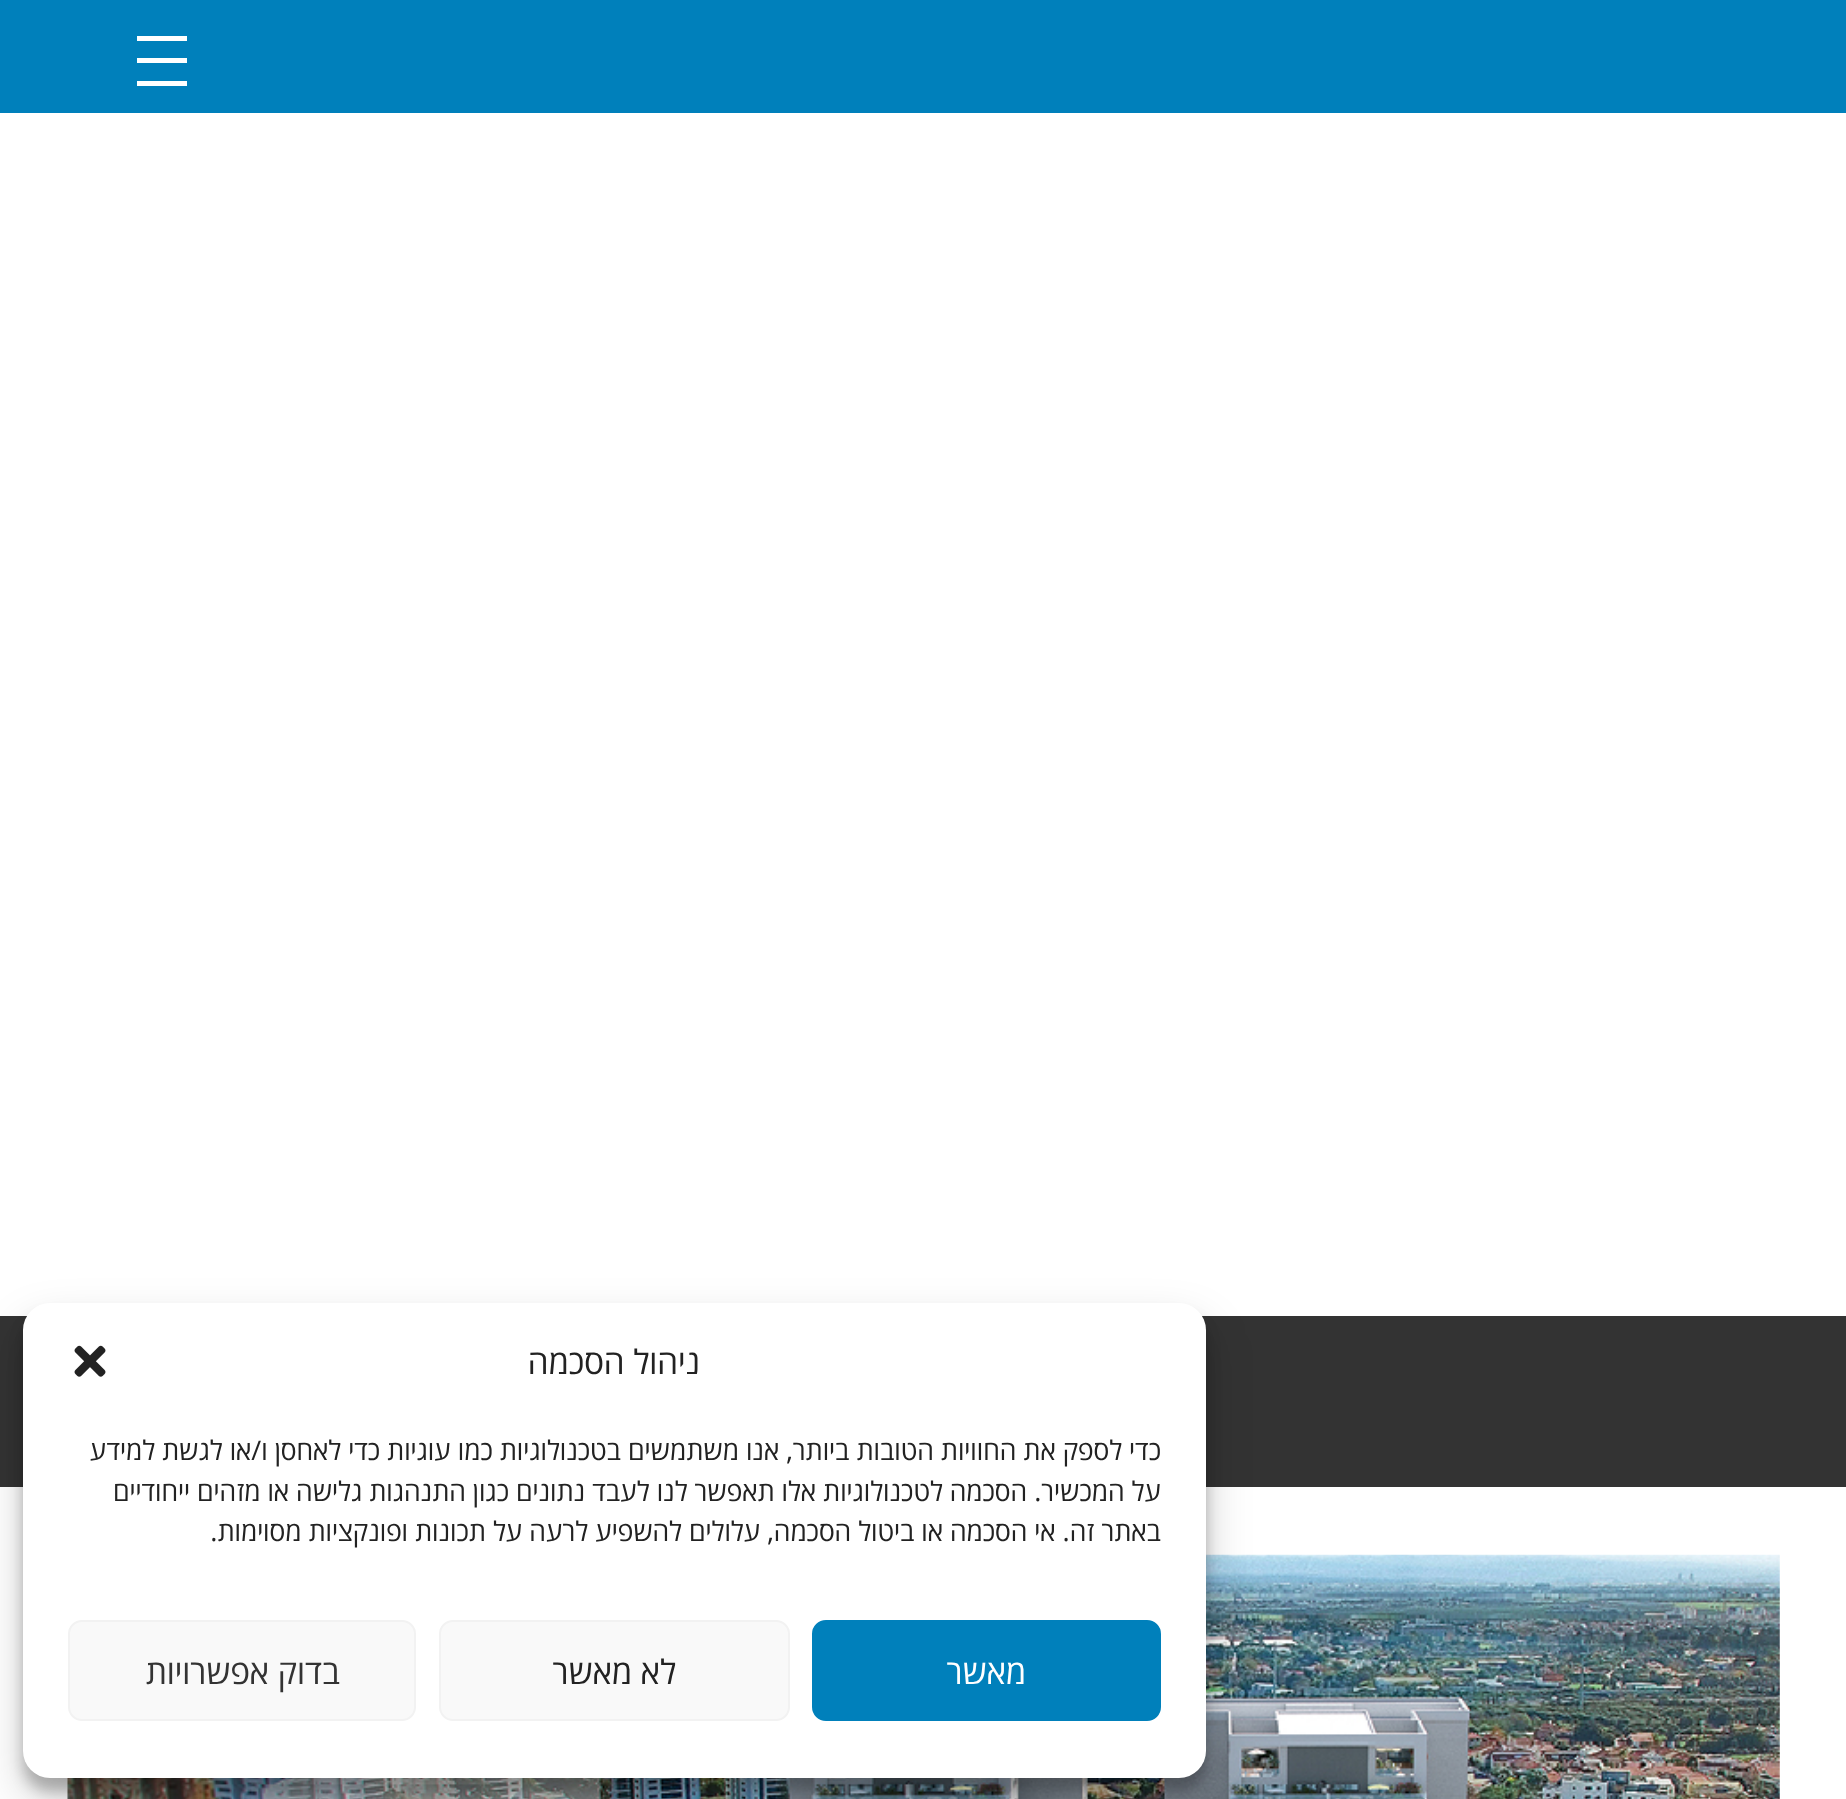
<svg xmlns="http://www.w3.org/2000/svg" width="1846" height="1799">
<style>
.a{font:33.75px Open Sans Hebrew;direction:rtl;fill:#222}
.b{font:27px Open Sans Hebrew;direction:rtl;fill:#222}
.c{font:33.75px Open Sans Hebrew;direction:rtl;fill:#fff}
.d{font:33.75px Open Sans Hebrew;direction:rtl;fill:#333}
</style>
<rect width="100%" height="100%" fill="#fff"/>
<path fill="#0080bb" d="M0 0h1846v113H0z"/>
<path fill="#fff" d="M137 36h50v5H137z"/>
<path fill="#fff" d="M137 58h50v5H137z"/>
<path fill="#fff" d="M137 81h50v5H137z"/>
<path fill="#333" d="M0 1316h1846v171H0z"/>
<image href="1.png" x="67" y="1554" width="1713" height="245"/>
<rect fill="#0000003b" filter="blur(7px)" x="23" y="1316" width="1183" height="475" rx="27"/>
<rect fill="#00000030" filter="blur(22.5px)" x="23" y="1325" width="1183" height="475" rx="27"/>
<rect fill="#fff" x="23" y="1303" width="1183" height="475" rx="27"/>
<image href="2.png" x="74" y="1345" width="32" height="32"/>
<rect fill="#0080bb" stroke="#0080bb" stroke-width="2" x="813" y="1621" width="347" height="99" rx="13"/>
<rect fill="#f9f9f9" stroke="#f2f2f2" stroke-width="2" x="440" y="1621" width="349" height="99" rx="13"/>
<rect fill="#f9f9f9" stroke="#f2f2f2" stroke-width="2" x="69" y="1621" width="346" height="99" rx="13"/>
<text class="a" x="700" y="1374">ניהול הסכמה</text>
<text class="b" x="1161" y="1460">כדי לספק את החוויות הטובות ביותר, אנו משתמשים בטכנולוגיות כמו עוגיות כדי לאחסן ו/או לגשת למידע</text>
<text class="b" x="1161" y="1501">על המכשיר. הסכמה לטכנולוגיות אלו תאפשר לנו לעבד נתונים כגון התנהגות גלישה או מזהים ייחודיים</text>
<text class="b" x="1161" y="1541">באתר זה. אי הסכמה או ביטול הסכמה, עלולים להשפיע לרעה על תכונות ופונקציות מסוימות.</text>
<text class="c" x="1026" y="1684">מאשר</text>
<text class="a" x="676" y="1684">לא מאשר</text>
<text class="d" x="340" y="1684">בדוק אפשרויות</text>
</svg>
